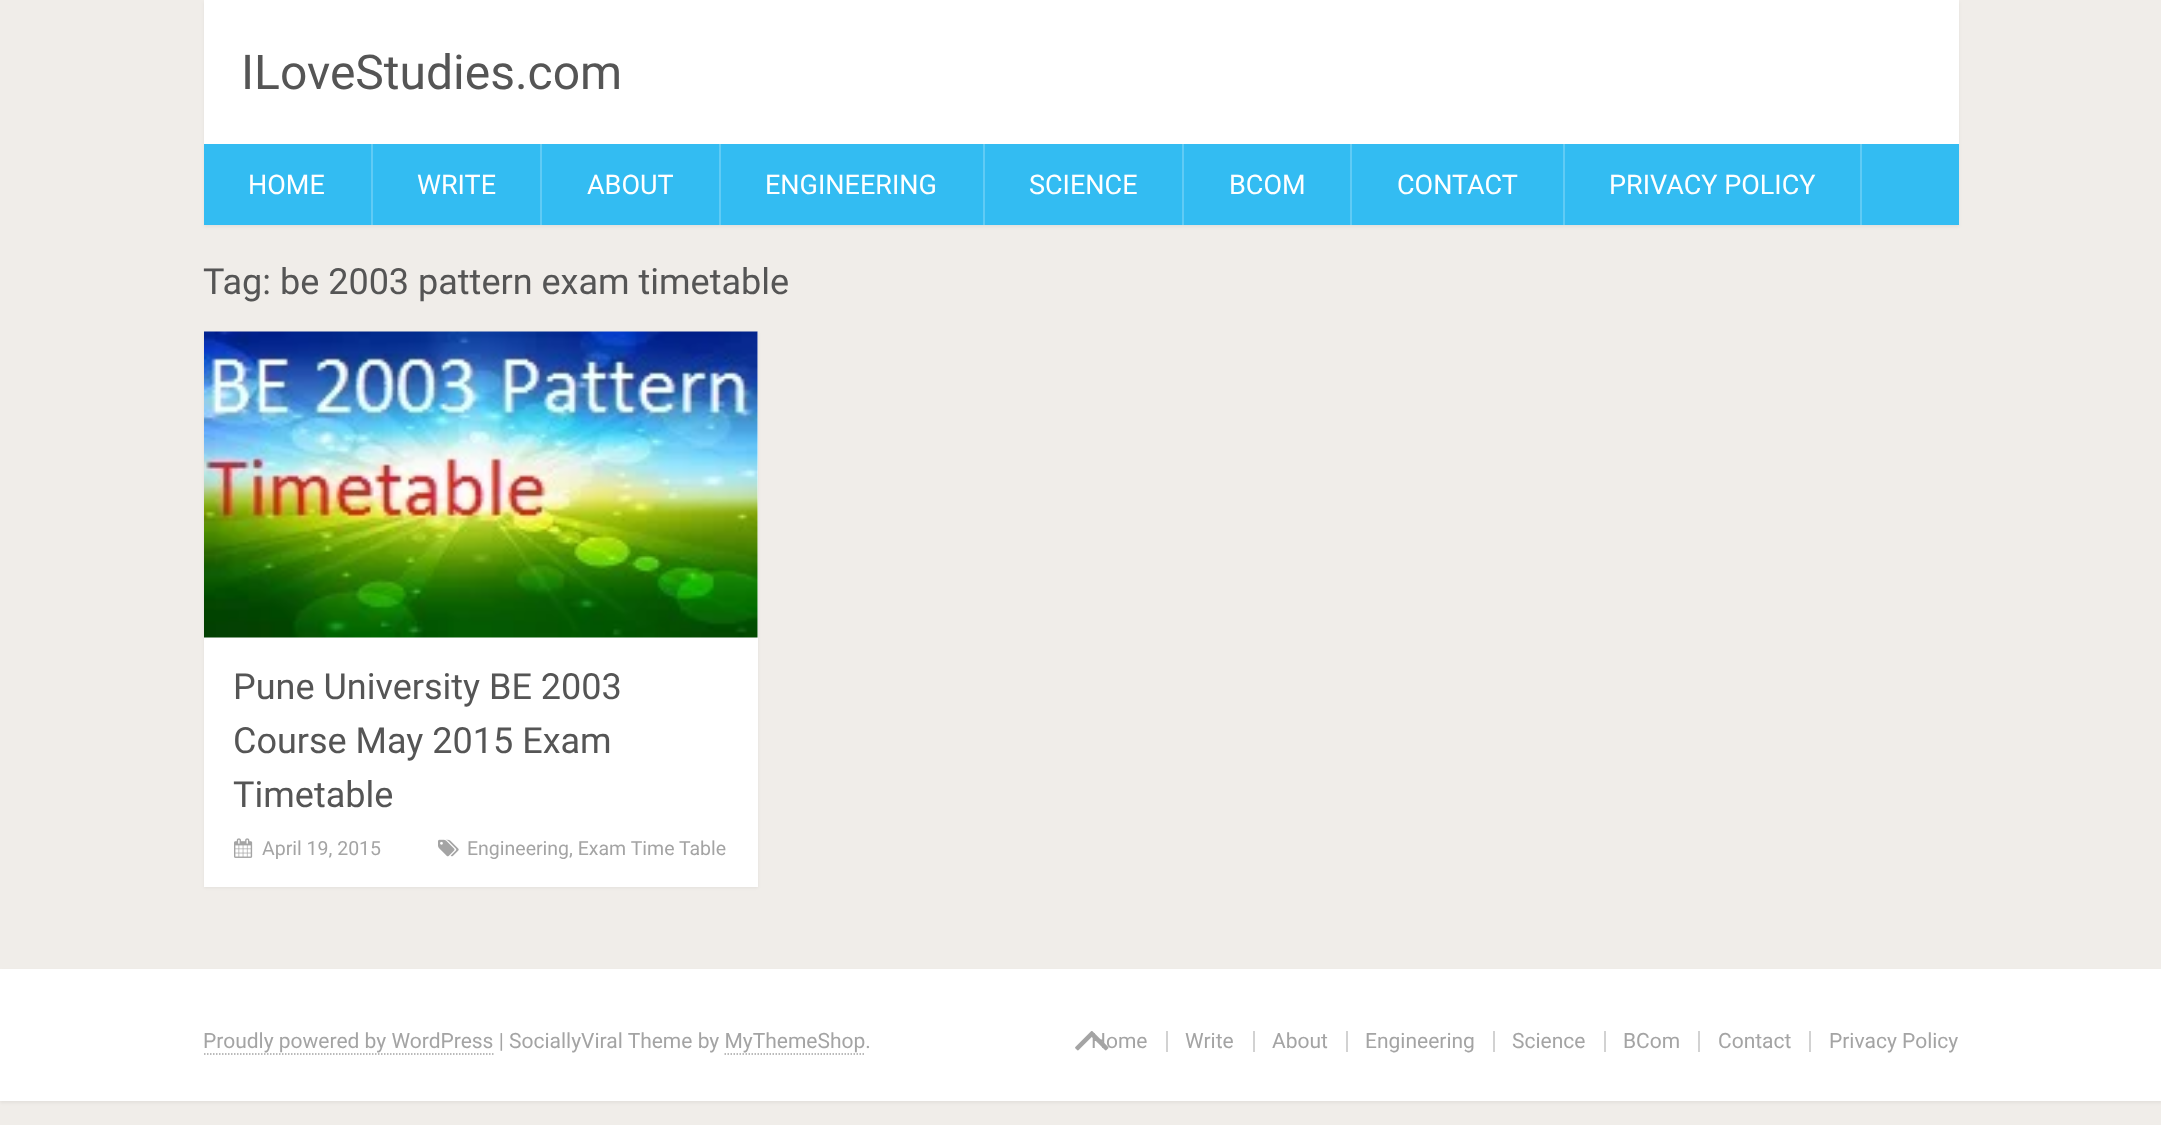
<svg xmlns="http://www.w3.org/2000/svg" width="2161" height="1125">
<style>
.a{font:48px Roboto;fill:#555}
.b{font:27px Roboto;fill:#fff}
.c{font:36px Roboto;fill:#555}
.d{font:19.5px Roboto;fill:#a4a4a4}
.e{font:21px Roboto;fill:#a4a4a4}
</style>
<rect width="100%" height="100%" fill="#f0ede9"/>
<path fill="#0000000d" filter="blur(1.5px)" d="M204 2h1755v225H204z"/>
<path fill="#fff" d="M204 0h1755v144H204z"/>
<path fill="#33bcf2" d="M204 144h1755v81H204z"/>
<path fill="#60cbf5" d="M371 144h2v81H371z"/>
<path fill="#60cbf5" d="M540 144h2v81H540z"/>
<path fill="#60cbf5" d="M719 144h2v81H719z"/>
<path fill="#60cbf5" d="M983 144h2v81H983z"/>
<path fill="#60cbf5" d="M1182 144h2v81H1182z"/>
<path fill="#60cbf5" d="M1350 144h2v81H1350z"/>
<path fill="#60cbf5" d="M1563 144h2v81H1563z"/>
<path fill="#60cbf5" d="M1860 144h2v81H1860z"/>
<path fill="#0000000d" filter="blur(1.5px)" d="M204 333h554v555H204z"/>
<path fill="#fff" d="M204 332h554v555H204z"/>
<image href="1.png" x="204" y="331" width="554" height="307"/>
<image href="2.png" x="234" y="838" width="19" height="20"/>
<image href="3.png" x="438" y="839" width="21" height="18"/>
<path fill="#0000000d" filter="blur(1.5px)" d="M0 971h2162v132H0z"/>
<path fill="#fff" d="M0 969h2161v132H0z"/>
<path fill="none" stroke="#a4a4a4" stroke-width="1.5" stroke-dasharray="1.5 1.5" d="M204 1054h289.5"/>
<path fill="none" stroke="#a4a4a4" stroke-width="1.5" stroke-dasharray="1.5 1.5" d="M724.5 1054h141"/>
<path fill="#d2d2d2" d="M1166 1031h2v21H1166z"/>
<path fill="#d2d2d2" d="M1253 1031h2v21H1253z"/>
<path fill="#d2d2d2" d="M1346 1031h2v21H1346z"/>
<path fill="#d2d2d2" d="M1493 1031h2v21H1493z"/>
<path fill="#d2d2d2" d="M1604 1031h2v21H1604z"/>
<path fill="#d2d2d2" d="M1698 1031h2v21H1698z"/>
<path fill="#d2d2d2" d="M1809 1031h2v21H1809z"/>
<text class="a" x="241" y="89">ILoveStudies.com</text>
<text class="b" x="248" y="194">HOME</text>
<text class="b" x="417" y="194">WRITE</text>
<text class="b" x="587" y="194">ABOUT</text>
<text class="b" x="765" y="194">ENGINEERING</text>
<text class="b" x="1029" y="194">SCIENCE</text>
<text class="b" x="1229" y="194">BCOM</text>
<text class="b" x="1397" y="194">CONTACT</text>
<text class="b" x="1609" y="194">PRIVACY POLICY</text>
<text class="c" x="203" y="294">Tag: be 2003 pattern exam timetable</text>
<text class="c" x="233" y="699">Pune University BE 2003</text>
<text class="c" x="233" y="753">Course May 2015 Exam</text>
<text class="c" x="233" y="807">Timetable</text>
<text class="d" x="262" y="855">April 19, 2015</text>
<text class="d" x="467" y="855">Engineering, Exam Time Table</text>
<text class="e" x="203" y="1048">Proudly powered by WordPress | SociallyViral Theme by MyThemeShop.</text>
<text class="e" x="1091" y="1048">Home</text>
<image href="4.png" x="1075" y="1031" width="34" height="20"/>
<text class="e" x="1185" y="1048">Write</text>
<text class="e" x="1272" y="1048">About</text>
<text class="e" x="1365" y="1048">Engineering</text>
<text class="e" x="1512" y="1048">Science</text>
<text class="e" x="1623" y="1048">BCom</text>
<text class="e" x="1718" y="1048">Contact</text>
<text class="e" x="1829" y="1048">Privacy Policy</text>
</svg>
